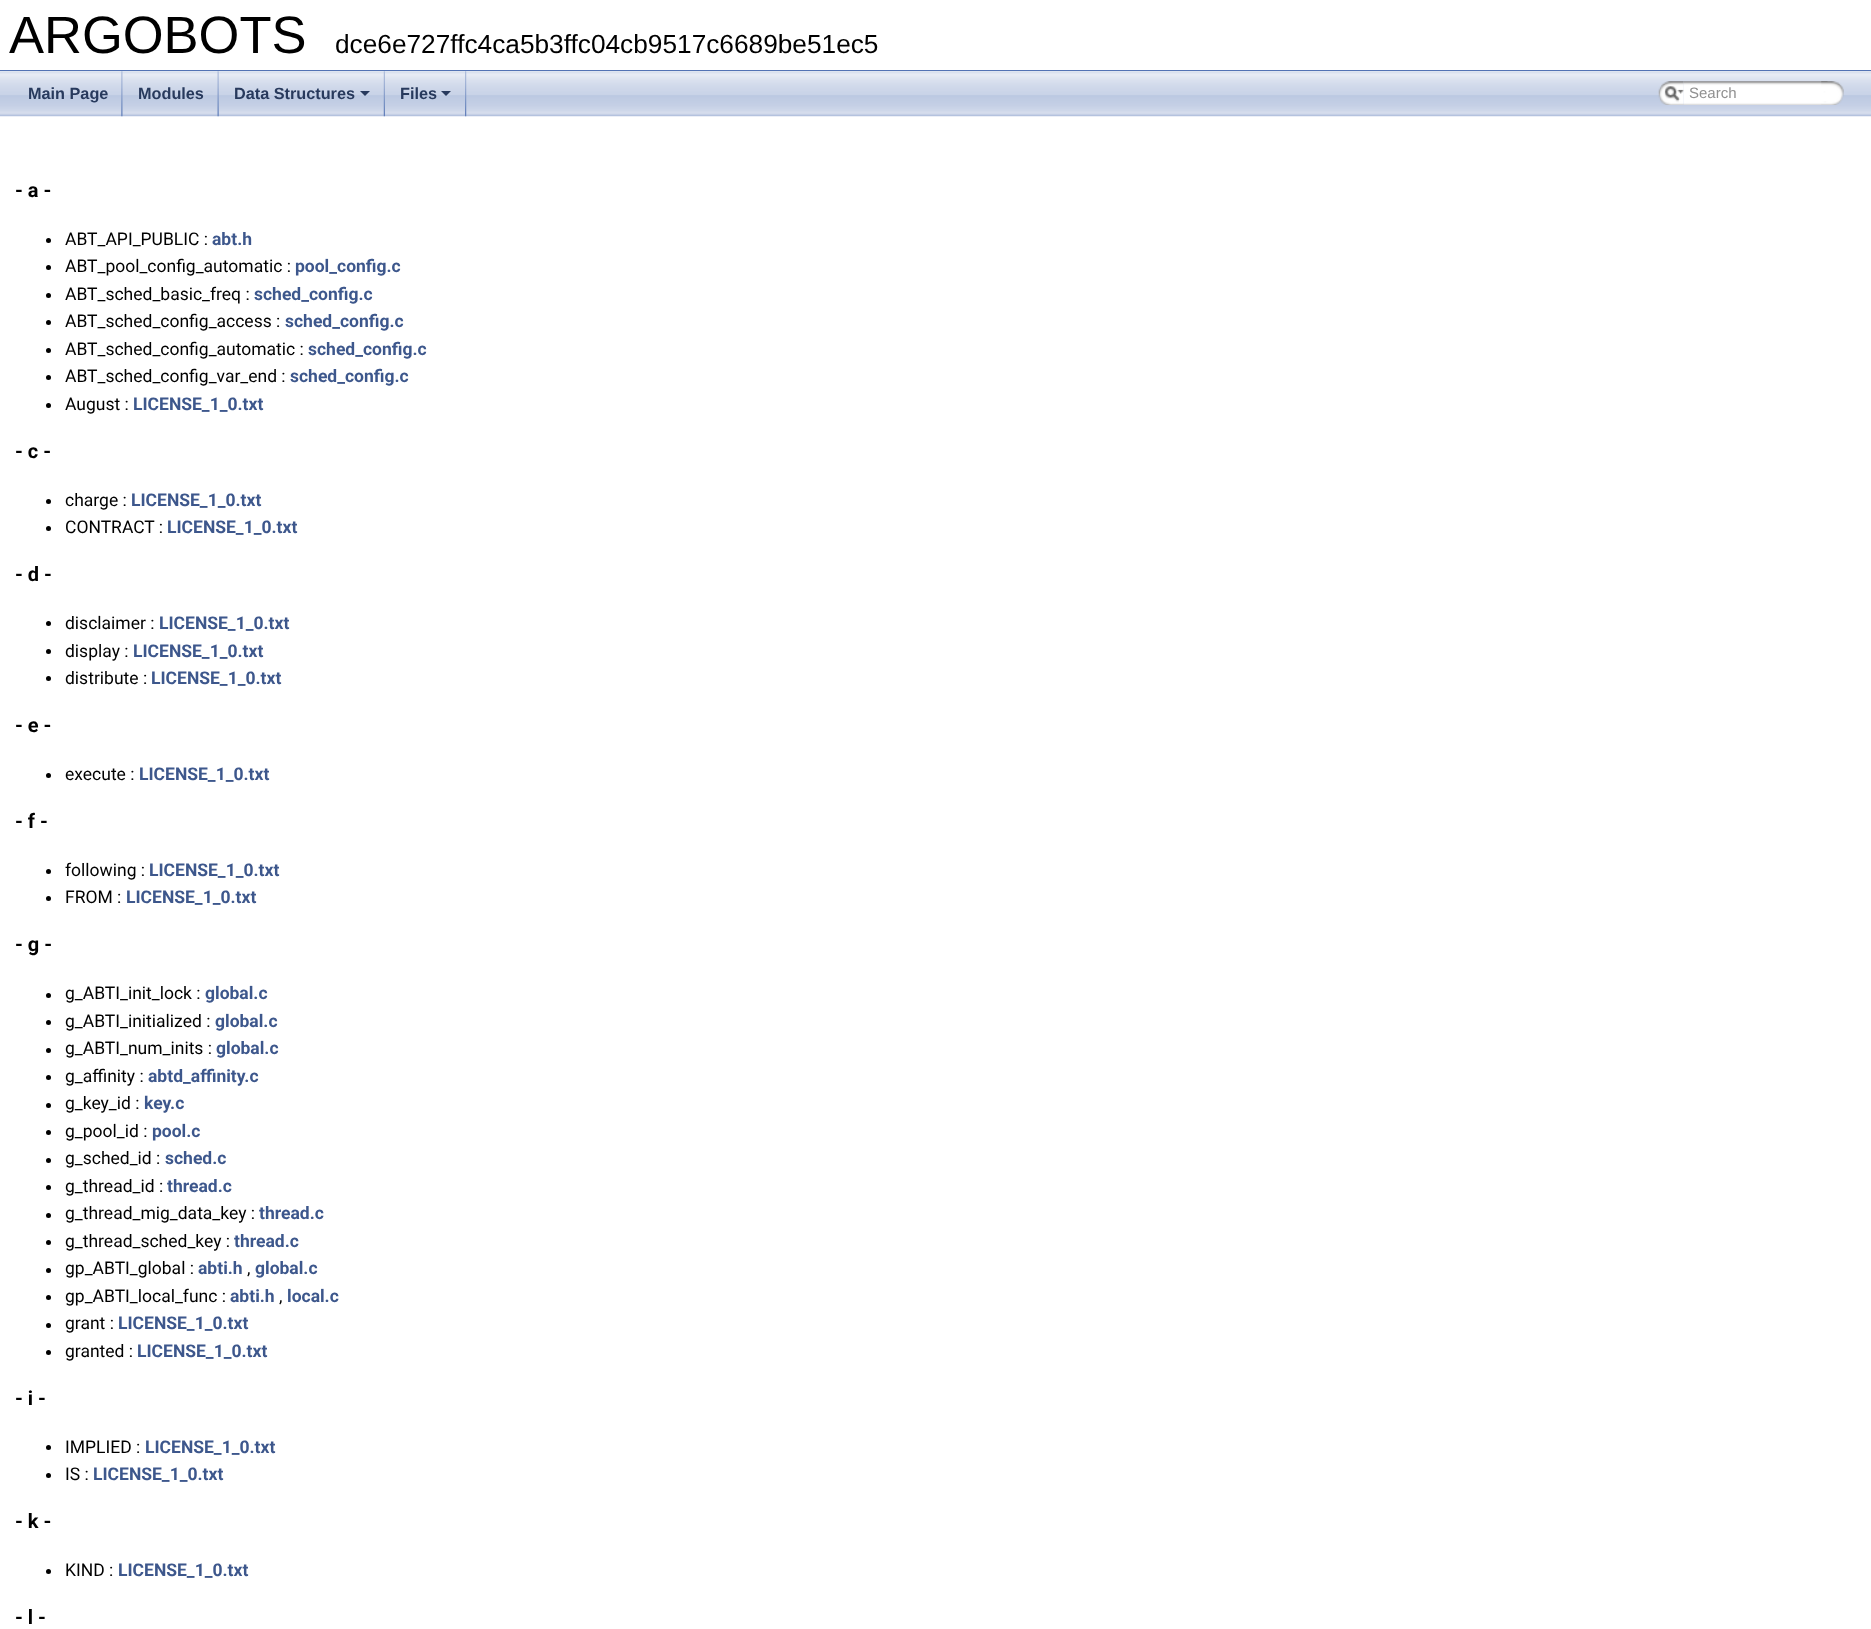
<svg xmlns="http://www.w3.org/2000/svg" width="1871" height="1629">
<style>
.a{font:52.5px Liberation Sans;fill:#000}
.b{font:26.25px Liberation Sans;fill:#000}
.c{font:bold 16.25px Liberation Sans;fill:#283a5d}
.d{font:15px Liberation Sans;fill:#909090}
.e{font:bold 20px Roboto;fill:#000}
.f{font:17.5px Roboto;fill:#000}
.g{font:bold 17.5px Roboto;fill:#3d578c}
</style>
<rect width="100%" height="100%" fill="#fff"/>
<path fill="#5373b4" d="M0 70h1871v1H0z"/>
<image href="1.png" x="0" y="71" width="1871" height="46"/>
<image href="2.png" x="121" y="71" width="2" height="46"/>
<image href="3.png" x="217" y="71" width="2" height="46"/>
<image href="4.png" x="383" y="71" width="2" height="46"/>
<path fill="#283a5d" d="M360 91h10l-5 5z"/>
<image href="5.png" x="465" y="71" width="2" height="46"/>
<path fill="#283a5d" d="M441 91h10l-5 5z"/>
<image href="6.png" x="1658" y="81" width="26" height="24"/>
<image href="7.png" x="1664" y="86" width="20" height="16"/>
<image href="8.png" x="1683" y="81" width="145" height="24"/>
<image href="9.png" x="1821" y="81" width="23" height="24"/>
<circle fill="#000" cx="48.5" cy="240.5" r="2.5"/>
<circle fill="#000" cx="48.5" cy="267.5" r="2.5"/>
<circle fill="#000" cx="48.5" cy="295.5" r="2.5"/>
<circle fill="#000" cx="48.5" cy="322.5" r="2.5"/>
<circle fill="#000" cx="48.5" cy="350.5" r="2.5"/>
<circle fill="#000" cx="48.5" cy="377.5" r="2.5"/>
<circle fill="#000" cx="48.5" cy="405.5" r="2.5"/>
<circle fill="#000" cx="48.5" cy="501.5" r="2.5"/>
<circle fill="#000" cx="48.5" cy="528.5" r="2.5"/>
<circle fill="#000" cx="48.5" cy="623.5" r="2.5"/>
<circle fill="#000" cx="48.5" cy="651.5" r="2.5"/>
<circle fill="#000" cx="48.5" cy="678.5" r="2.5"/>
<circle fill="#000" cx="48.5" cy="775.5" r="2.5"/>
<circle fill="#000" cx="48.5" cy="871.5" r="2.5"/>
<circle fill="#000" cx="48.5" cy="898.5" r="2.5"/>
<circle fill="#000" cx="48.5" cy="995.5" r="2.5"/>
<circle fill="#000" cx="48.5" cy="1022.5" r="2.5"/>
<circle fill="#000" cx="48.5" cy="1050.5" r="2.5"/>
<circle fill="#000" cx="48.5" cy="1077.5" r="2.5"/>
<circle fill="#000" cx="48.5" cy="1105.5" r="2.5"/>
<circle fill="#000" cx="48.5" cy="1132.5" r="2.5"/>
<circle fill="#000" cx="48.5" cy="1160.5" r="2.5"/>
<circle fill="#000" cx="48.5" cy="1187.5" r="2.5"/>
<circle fill="#000" cx="48.5" cy="1215.5" r="2.5"/>
<circle fill="#000" cx="48.5" cy="1242.5" r="2.5"/>
<circle fill="#000" cx="48.5" cy="1270.5" r="2.5"/>
<circle fill="#000" cx="48.5" cy="1297.5" r="2.5"/>
<circle fill="#000" cx="48.5" cy="1325.5" r="2.5"/>
<circle fill="#000" cx="48.5" cy="1352.5" r="2.5"/>
<circle fill="#000" cx="48.5" cy="1447.5" r="2.5"/>
<circle fill="#000" cx="48.5" cy="1475.5" r="2.5"/>
<circle fill="#000" cx="48.5" cy="1571.5" r="2.5"/>
<text class="a" x="9" y="53">ARGOBOTS</text>
<text class="b" x="335" y="53">dce6e727ffc4ca5b3ffc04cb9517c6689be51ec5</text>
<text class="c" x="28" y="99">Main Page</text>
<text class="c" x="138" y="99">Modules</text>
<text class="c" x="234" y="99">Data Structures</text>
<text class="c" x="400" y="99">Files</text>
<text class="d" x="1689" y="98">Search</text>
<text class="e" x="15" y="197">- a -</text>
<text class="f" x="65" y="245">ABT_API_PUBLIC :</text>
<text class="g" x="212" y="245">abt.h</text>
<text class="f" x="65" y="272">ABT_pool_config_automatic :</text>
<text class="g" x="295" y="272">pool_config.c</text>
<text class="f" x="65" y="300">ABT_sched_basic_freq :</text>
<text class="g" x="254" y="300">sched_config.c</text>
<text class="f" x="65" y="327">ABT_sched_config_access :</text>
<text class="g" x="285" y="327">sched_config.c</text>
<text class="f" x="65" y="355">ABT_sched_config_automatic :</text>
<text class="g" x="308" y="355">sched_config.c</text>
<text class="f" x="65" y="382">ABT_sched_config_var_end :</text>
<text class="g" x="290" y="382">sched_config.c</text>
<text class="f" x="65" y="410">August :</text>
<text class="g" x="133" y="410">LICENSE_1_0.txt</text>
<text class="e" x="15" y="458">- c -</text>
<text class="f" x="65" y="506">charge :</text>
<text class="g" x="131" y="506">LICENSE_1_0.txt</text>
<text class="f" x="65" y="533">CONTRACT :</text>
<text class="g" x="167" y="533">LICENSE_1_0.txt</text>
<text class="e" x="15" y="581">- d -</text>
<text class="f" x="65" y="629">disclaimer :</text>
<text class="g" x="159" y="629">LICENSE_1_0.txt</text>
<text class="f" x="65" y="657">display :</text>
<text class="g" x="133" y="657">LICENSE_1_0.txt</text>
<text class="f" x="65" y="684">distribute :</text>
<text class="g" x="151" y="684">LICENSE_1_0.txt</text>
<text class="e" x="15" y="732">- e -</text>
<text class="f" x="65" y="780">execute :</text>
<text class="g" x="139" y="780">LICENSE_1_0.txt</text>
<text class="e" x="15" y="828">- f -</text>
<text class="f" x="65" y="876">following :</text>
<text class="g" x="149" y="876">LICENSE_1_0.txt</text>
<text class="f" x="65" y="903">FROM :</text>
<text class="g" x="126" y="903">LICENSE_1_0.txt</text>
<text class="e" x="15" y="951">- g -</text>
<text class="f" x="65" y="999">g_ABTI_init_lock :</text>
<text class="g" x="205" y="999">global.c</text>
<text class="f" x="65" y="1027">g_ABTI_initialized :</text>
<text class="g" x="215" y="1027">global.c</text>
<text class="f" x="65" y="1054">g_ABTI_num_inits :</text>
<text class="g" x="216" y="1054">global.c</text>
<text class="f" x="65" y="1082">g_affinity :</text>
<text class="g" x="148" y="1082">abtd_affinity.c</text>
<text class="f" x="65" y="1109">g_key_id :</text>
<text class="g" x="144" y="1109">key.c</text>
<text class="f" x="65" y="1137">g_pool_id :</text>
<text class="g" x="152" y="1137">pool.c</text>
<text class="f" x="65" y="1164">g_sched_id :</text>
<text class="g" x="165" y="1164">sched.c</text>
<text class="f" x="65" y="1192">g_thread_id :</text>
<text class="g" x="167" y="1192">thread.c</text>
<text class="f" x="65" y="1219">g_thread_mig_data_key :</text>
<text class="g" x="259" y="1219">thread.c</text>
<text class="f" x="65" y="1247">g_thread_sched_key :</text>
<text class="g" x="234" y="1247">thread.c</text>
<text class="f" x="65" y="1274">gp_ABTI_global :</text>
<text class="g" x="198" y="1274">abti.h</text>
<text class="g" x="255" y="1274">global.c</text>
<text class="f" x="247" y="1274">,</text>
<text class="f" x="65" y="1302">gp_ABTI_local_func :</text>
<text class="g" x="230" y="1302">abti.h</text>
<text class="g" x="287" y="1302">local.c</text>
<text class="f" x="279" y="1302">,</text>
<text class="f" x="65" y="1329">grant :</text>
<text class="g" x="118" y="1329">LICENSE_1_0.txt</text>
<text class="f" x="65" y="1357">granted :</text>
<text class="g" x="137" y="1357">LICENSE_1_0.txt</text>
<text class="e" x="15" y="1405">- i -</text>
<text class="f" x="65" y="1453">IMPLIED :</text>
<text class="g" x="145" y="1453">LICENSE_1_0.txt</text>
<text class="f" x="65" y="1480">IS :</text>
<text class="g" x="93" y="1480">LICENSE_1_0.txt</text>
<text class="e" x="15" y="1528">- k -</text>
<text class="f" x="65" y="1576">KIND :</text>
<text class="g" x="118" y="1576">LICENSE_1_0.txt</text>
<text class="e" x="15" y="1624">- l -</text>
</svg>
